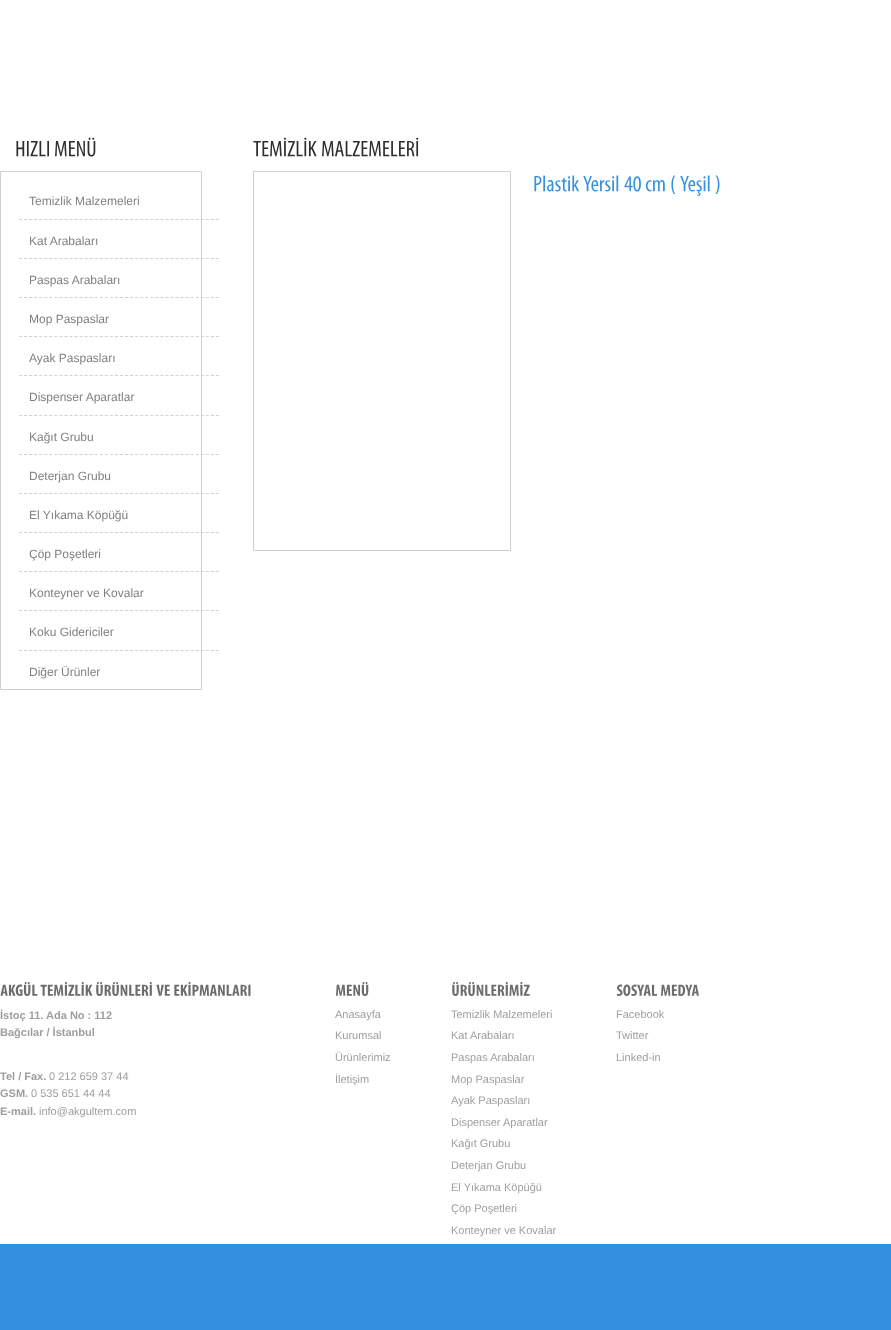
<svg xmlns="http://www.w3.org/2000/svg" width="891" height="1330">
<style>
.a{font:12px Liberation Sans;fill:#818181}
.b{font:bold 11px Liberation Sans;fill:#9e9e9e}
.c{font:11px Liberation Sans;fill:#9e9e9e}
</style>
<rect width="100%" height="100%" fill="#fff"/>
<image href="1.png" x="16" y="140" width="33" height="17"/>
<image href="2.png" x="55" y="137" width="41" height="20"/>
<path fill="none" stroke="#d0d0d0" d="M0.5 171.5h201v518H0.5z"/>
<path fill="none" stroke="#d2d2d2" stroke-dasharray="3 2.05" d="M19 219.5h200"/>
<path fill="none" stroke="#d2d2d2" stroke-dasharray="3 2.05" d="M19 258.5h200"/>
<path fill="none" stroke="#d2d2d2" stroke-dasharray="3 2.05" d="M19 297.5h200"/>
<path fill="none" stroke="#d2d2d2" stroke-dasharray="3 2.05" d="M19 336.5h200"/>
<path fill="none" stroke="#d2d2d2" stroke-dasharray="3 2.05" d="M19 375.5h200"/>
<path fill="none" stroke="#d2d2d2" stroke-dasharray="3 2.05" d="M19 415.5h200"/>
<path fill="none" stroke="#d2d2d2" stroke-dasharray="3 2.05" d="M19 454.5h200"/>
<path fill="none" stroke="#d2d2d2" stroke-dasharray="3 2.05" d="M19 493.5h200"/>
<path fill="none" stroke="#d2d2d2" stroke-dasharray="3 2.05" d="M19 532.5h200"/>
<path fill="none" stroke="#d2d2d2" stroke-dasharray="3 2.05" d="M19 571.5h200"/>
<path fill="none" stroke="#d2d2d2" stroke-dasharray="3 2.05" d="M19 610.5h200"/>
<path fill="none" stroke="#d2d2d2" stroke-dasharray="3 2.05" d="M19 650.5h200"/>
<image href="3.png" x="253" y="137" width="64" height="20"/>
<image href="4.png" x="322" y="137" width="97" height="20"/>
<path fill="none" stroke="#d0d0d0" d="M253.5 171.5h257v379H253.5z"/>
<image href="5.png" x="534" y="175" width="45" height="17"/>
<image href="6.png" x="583" y="175" width="36" height="17"/>
<image href="7.png" x="624" y="176" width="17" height="16"/>
<image href="8.png" x="645" y="180" width="20" height="12"/>
<image href="9.png" x="671" y="175" width="5" height="19"/>
<image href="10.png" x="680" y="175" width="30" height="21"/>
<image href="11.png" x="715" y="175" width="5" height="19"/>
<image href="12.png" x="0" y="982" width="38" height="14"/>
<image href="13.png" x="40" y="982" width="53" height="14"/>
<image href="14.png" x="96" y="982" width="56" height="14"/>
<image href="15.png" x="156" y="984" width="14" height="12"/>
<image href="16.png" x="174" y="982" width="77" height="14"/>
<image href="17.png" x="336" y="982" width="33" height="14"/>
<image href="18.png" x="452" y="982" width="78" height="14"/>
<image href="19.png" x="616" y="984" width="41" height="12"/>
<image href="20.png" x="661" y="984" width="38" height="12"/>
<path fill="#3290de" d="M0 1244h891v86H0z"/>
<text class="a" x="29" y="205">Temizlik Malzemeleri</text>
<text class="a" x="29" y="245">Kat Arabaları</text>
<text class="a" x="29" y="284">Paspas Arabaları</text>
<text class="a" x="29" y="323">Mop Paspaslar</text>
<text class="a" x="29" y="362">Ayak Paspasları</text>
<text class="a" x="29" y="401">Dispenser Aparatlar</text>
<text class="a" x="29" y="441">Kağıt Grubu</text>
<text class="a" x="29" y="480">Deterjan Grubu</text>
<text class="a" x="29" y="519">El Yıkama Köpüğü</text>
<text class="a" x="29" y="558">Çöp Poşetleri</text>
<text class="a" x="29" y="597">Konteyner ve Kovalar</text>
<text class="a" x="29" y="636">Koku Gidericiler</text>
<text class="a" x="29" y="676">Diğer Ürünler</text>
<text class="b" x="0" y="1019">İstoç 11. Ada No : 112</text>
<text class="b" x="0" y="1036">Bağcılar / İstanbul</text>
<text class="b" x="0" y="1080">Tel / Fax.</text>
<text class="c" x="49" y="1080">0 212 659 37 44</text>
<text class="b" x="0" y="1097">GSM.</text>
<text class="c" x="31" y="1097">0 535 651 44 44</text>
<text class="b" x="0" y="1115">E-mail.</text>
<text class="c" x="39" y="1115">info@akgultem.com</text>
<text class="c" x="335" y="1018">Anasayfa</text>
<text class="c" x="335" y="1039">Kurumsal</text>
<text class="c" x="335" y="1061">Ürünlerimiz</text>
<text class="c" x="335" y="1083">İletişim</text>
<text class="c" x="451" y="1018">Temizlik Malzemeleri</text>
<text class="c" x="451" y="1039">Kat Arabaları</text>
<text class="c" x="451" y="1061">Paspas Arabaları</text>
<text class="c" x="451" y="1083">Mop Paspaslar</text>
<text class="c" x="451" y="1104">Ayak Paspasları</text>
<text class="c" x="451" y="1126">Dispenser Aparatlar</text>
<text class="c" x="451" y="1147">Kağıt Grubu</text>
<text class="c" x="451" y="1169">Deterjan Grubu</text>
<text class="c" x="451" y="1191">El Yıkama Köpüğü</text>
<text class="c" x="451" y="1212">Çöp Poşetleri</text>
<text class="c" x="451" y="1234">Konteyner ve Kovalar</text>
<text class="c" x="616" y="1018">Facebook</text>
<text class="c" x="616" y="1039">Twitter</text>
<text class="c" x="616" y="1061">Linked-in</text>
</svg>
